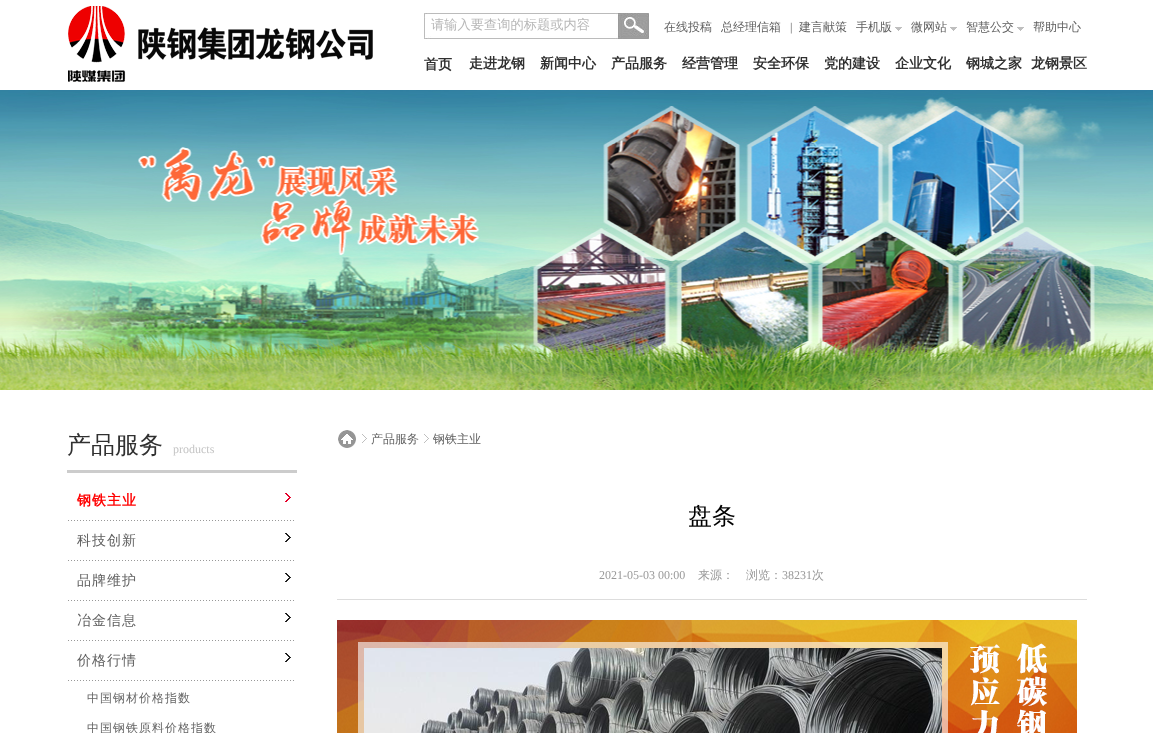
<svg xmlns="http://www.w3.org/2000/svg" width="1153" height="733">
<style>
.a{font:500 13.25px WenQuanYi Zen Hei;fill:#b8b8b8}
.b{font:500 12px WenQuanYi Zen Hei;fill:#606060}
.c{font:12px Liberation Serif;fill:#606060}
.d{font:bold 14px WenQuanYi Zen Hei;fill:#303030}
.e{font:500 24px WenQuanYi Zen Hei;fill:#303030}
.f{font:12px Liberation Serif;fill:#c4c4c4}
.g{font:bold 14px WenQuanYi Zen Hei;letter-spacing:1px;fill:#f00}
.h{font:500 14px WenQuanYi Zen Hei;letter-spacing:1px;fill:#606060}
.i{font:500 12px WenQuanYi Zen Hei;letter-spacing:1px;fill:#666}
.j{font:500 24px WenQuanYi Zen Hei;fill:#000}
.k{font:12px Liberation Serif;fill:#999}
.l{font:500 12px WenQuanYi Zen Hei;fill:#999}
</style>
<rect width="100%" height="100%" fill="#fff"/>
<image href="1.png" x="68" y="6" width="305" height="76"/>
<image href="2.png" x="424" y="13" width="225" height="26"/>
<path fill="#fff" d="M426 15h190v20H426z"/>
<image href="3.png" x="895" y="27" width="7" height="4"/>
<image href="3.png" x="950" y="27" width="7" height="4"/>
<image href="3.png" x="1017" y="27" width="7" height="4"/>
<image href="4.png" x="0" y="90" width="1153" height="300"/>
<path fill="#ccc" d="M67 470h230v3H67z"/>
<image href="5.png" x="68" y="493" width="226" height="28"/>
<image href="6.png" x="68" y="533" width="226" height="28"/>
<image href="6.png" x="68" y="573" width="226" height="28"/>
<image href="6.png" x="68" y="613" width="226" height="28"/>
<image href="6.png" x="68" y="653" width="226" height="28"/>
<image href="7.png" x="338" y="430" width="18" height="18"/>
<image href="8.png" x="362" y="434" width="5" height="9"/>
<image href="8.png" x="424" y="434" width="5" height="9"/>
<path fill="#ddd" d="M337 599h750v1H337z"/>
<image href="9.png" x="337" y="620" width="740" height="113"/>
<text class="a" x="431" y="29">请输入要查询的标题或内容</text>
<text class="b" x="664" y="31">在线投稿</text>
<text class="b" x="721" y="31">总经理信箱</text>
<text class="c" x="790" y="31">|</text>
<text class="b" x="799" y="31">建言献策</text>
<text class="b" x="856" y="31">手机版</text>
<text class="b" x="911" y="31">微网站</text>
<text class="b" x="966" y="31">智慧公交</text>
<text class="b" x="1033" y="31">帮助中心</text>
<text class="d" x="424" y="69">首页</text>
<text class="d" x="469" y="68">走进龙钢</text>
<text class="d" x="540" y="68">新闻中心</text>
<text class="d" x="611" y="68">产品服务</text>
<text class="d" x="682" y="68">经营管理</text>
<text class="d" x="753" y="68">安全环保</text>
<text class="d" x="824" y="68">党的建设</text>
<text class="d" x="895" y="68">企业文化</text>
<text class="d" x="966" y="68">钢城之家</text>
<text class="d" x="1031" y="68">龙钢景区</text>
<text class="e" x="67" y="453">产品服务</text>
<text class="f" x="173" y="453">products</text>
<text class="g" x="77" y="505">钢铁主业</text>
<text class="h" x="77" y="545">科技创新</text>
<text class="h" x="77" y="585">品牌维护</text>
<text class="h" x="77" y="625">冶金信息</text>
<text class="h" x="77" y="665">价格行情</text>
<text class="i" x="87" y="702">中国钢材价格指数</text>
<text class="i" x="87" y="732">中国钢铁原料价格指数</text>
<text class="b" x="371" y="443">产品服务</text>
<text class="b" x="433" y="443">钢铁主业</text>
<text class="j" x="688" y="524">盘条</text>
<text class="k" x="599" y="579">2021-05-03 00:00</text>
<text class="l" x="698" y="579">来源：</text>
<text class="l" x="746" y="579">浏览：</text>
<text class="k" x="782" y="579">38231</text>
<text class="l" x="812" y="579">次</text>
</svg>
